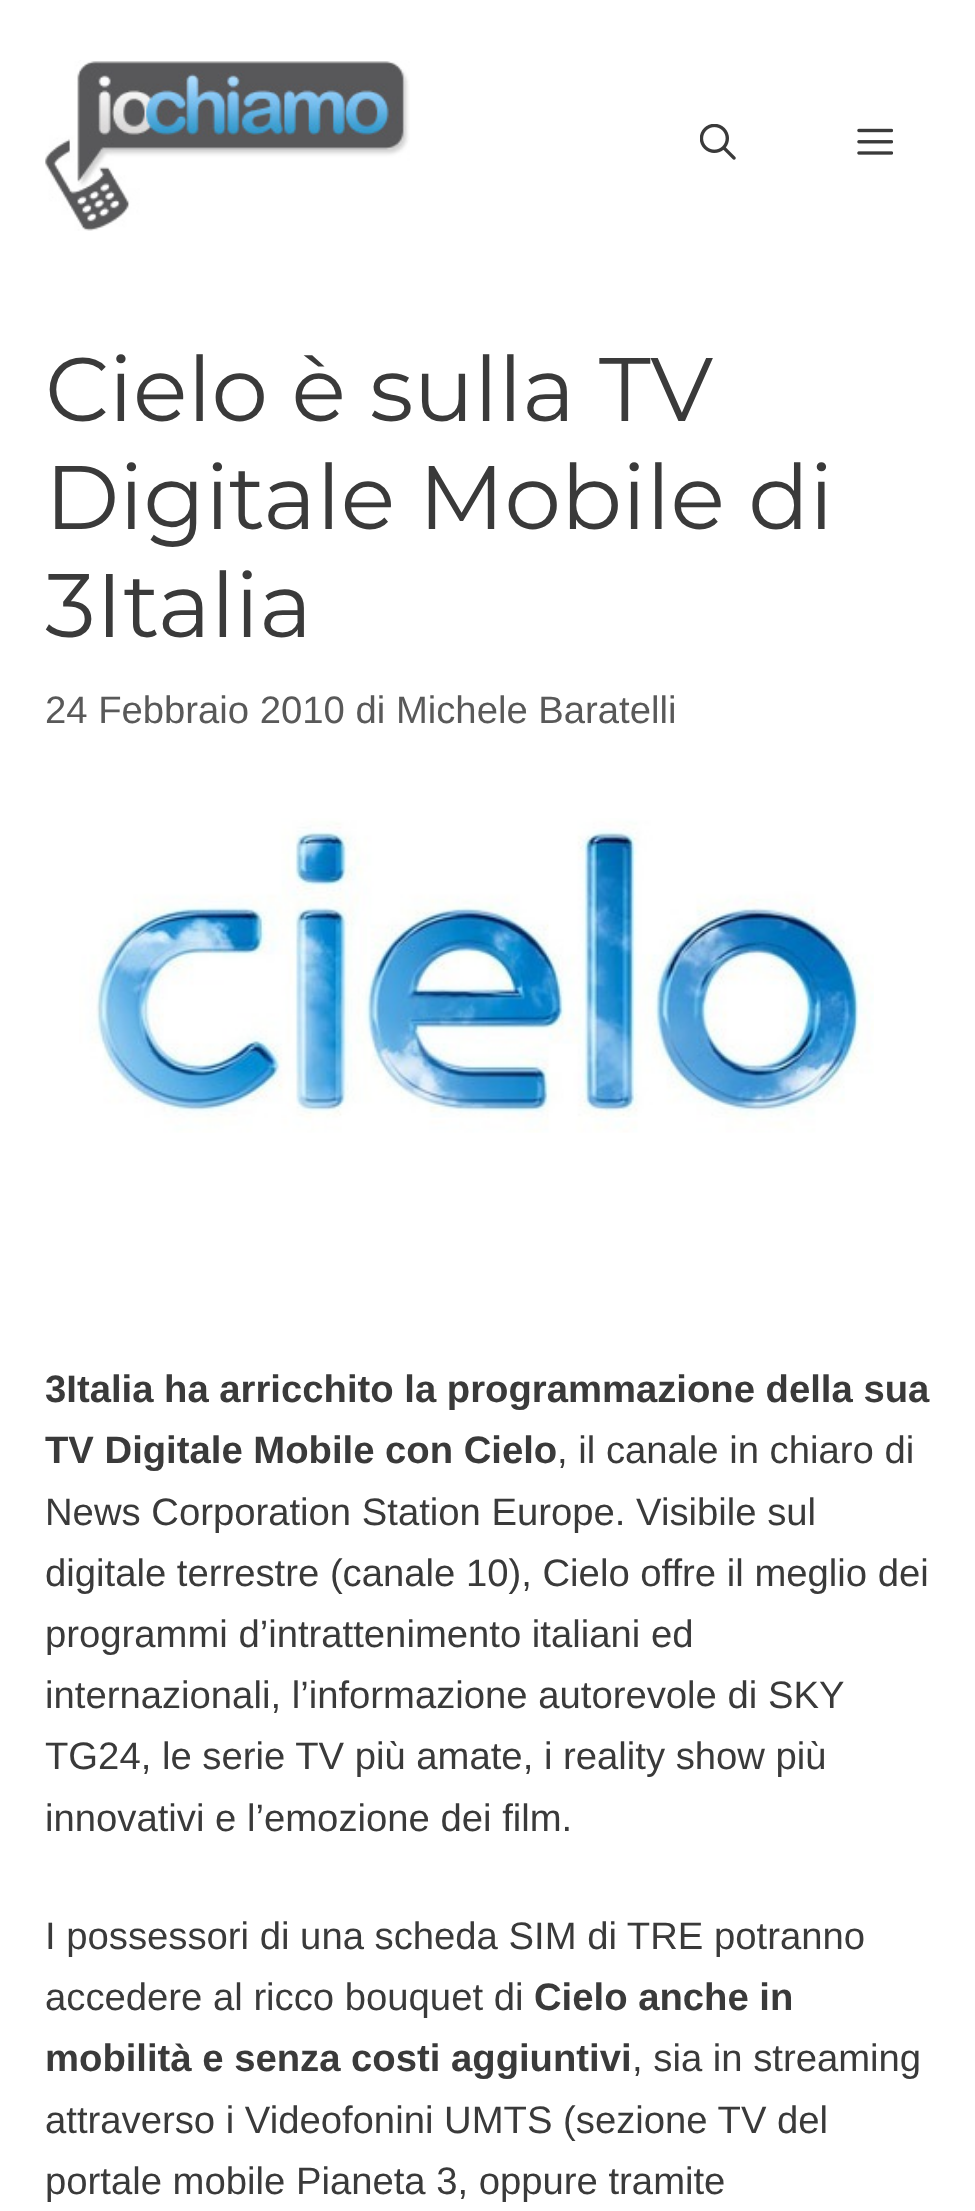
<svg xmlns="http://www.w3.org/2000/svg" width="975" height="2211">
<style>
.a{font:90px Montserrat;fill:#3a3a3a}
.b{font:38.25px Liberation Sans;fill:#595959}
.c{font:bold 38.25px Liberation Sans;fill:#3a3a3a}
.d{font:38.25px Liberation Sans;fill:#3a3a3a}
</style>
<rect width="100%" height="100%" fill="#fff"/>
<image href="1.png" x="45" y="60" width="365" height="171"/>
<image href="2.png" x="700" y="124" width="36" height="36"/>
<image href="3.png" x="857" y="128" width="36" height="27"/>
<image href="4.png" x="79" y="818" width="795" height="315"/>
<text class="a" x="45" y="421">Cielo è sulla TV</text>
<text class="a" x="45" y="529">Digitale Mobile di</text>
<text class="a" x="45" y="637">3Italia</text>
<text class="b" x="45" y="723">24 Febbraio 2010 di Michele Baratelli</text>
<text class="c" x="45" y="1402">3Italia ha arricchito la programmazione della sua</text>
<text class="c" x="45" y="1463">TV Digitale Mobile con Cielo</text>
<text class="d" x="557" y="1463">, il canale in chiaro di</text>
<text class="d" x="45" y="1525">News Corporation Station Europe. Visibile sul</text>
<text class="d" x="45" y="1586">digitale terrestre (canale 10), Cielo offre il meglio dei</text>
<text class="d" x="45" y="1647">programmi d’intrattenimento italiani ed</text>
<text class="d" x="45" y="1708">internazionali, l’informazione autorevole di SKY</text>
<text class="d" x="45" y="1769">TG24, le serie TV più amate, i reality show più</text>
<text class="d" x="45" y="1831">innovativi e l’emozione dei film.</text>
<text class="d" x="45" y="1949">I possessori di una scheda SIM di TRE potranno</text>
<text class="d" x="45" y="2010">accedere al ricco bouquet di</text>
<text class="c" x="534" y="2010">Cielo anche in</text>
<text class="c" x="45" y="2071">mobilità e senza costi aggiuntivi</text>
<text class="d" x="632" y="2071">, sia in streaming</text>
<text class="d" x="45" y="2133">attraverso i Videofonini UMTS (sezione TV del</text>
<text class="d" x="45" y="2194">portale mobile Pianeta 3, oppure tramite</text>
</svg>
